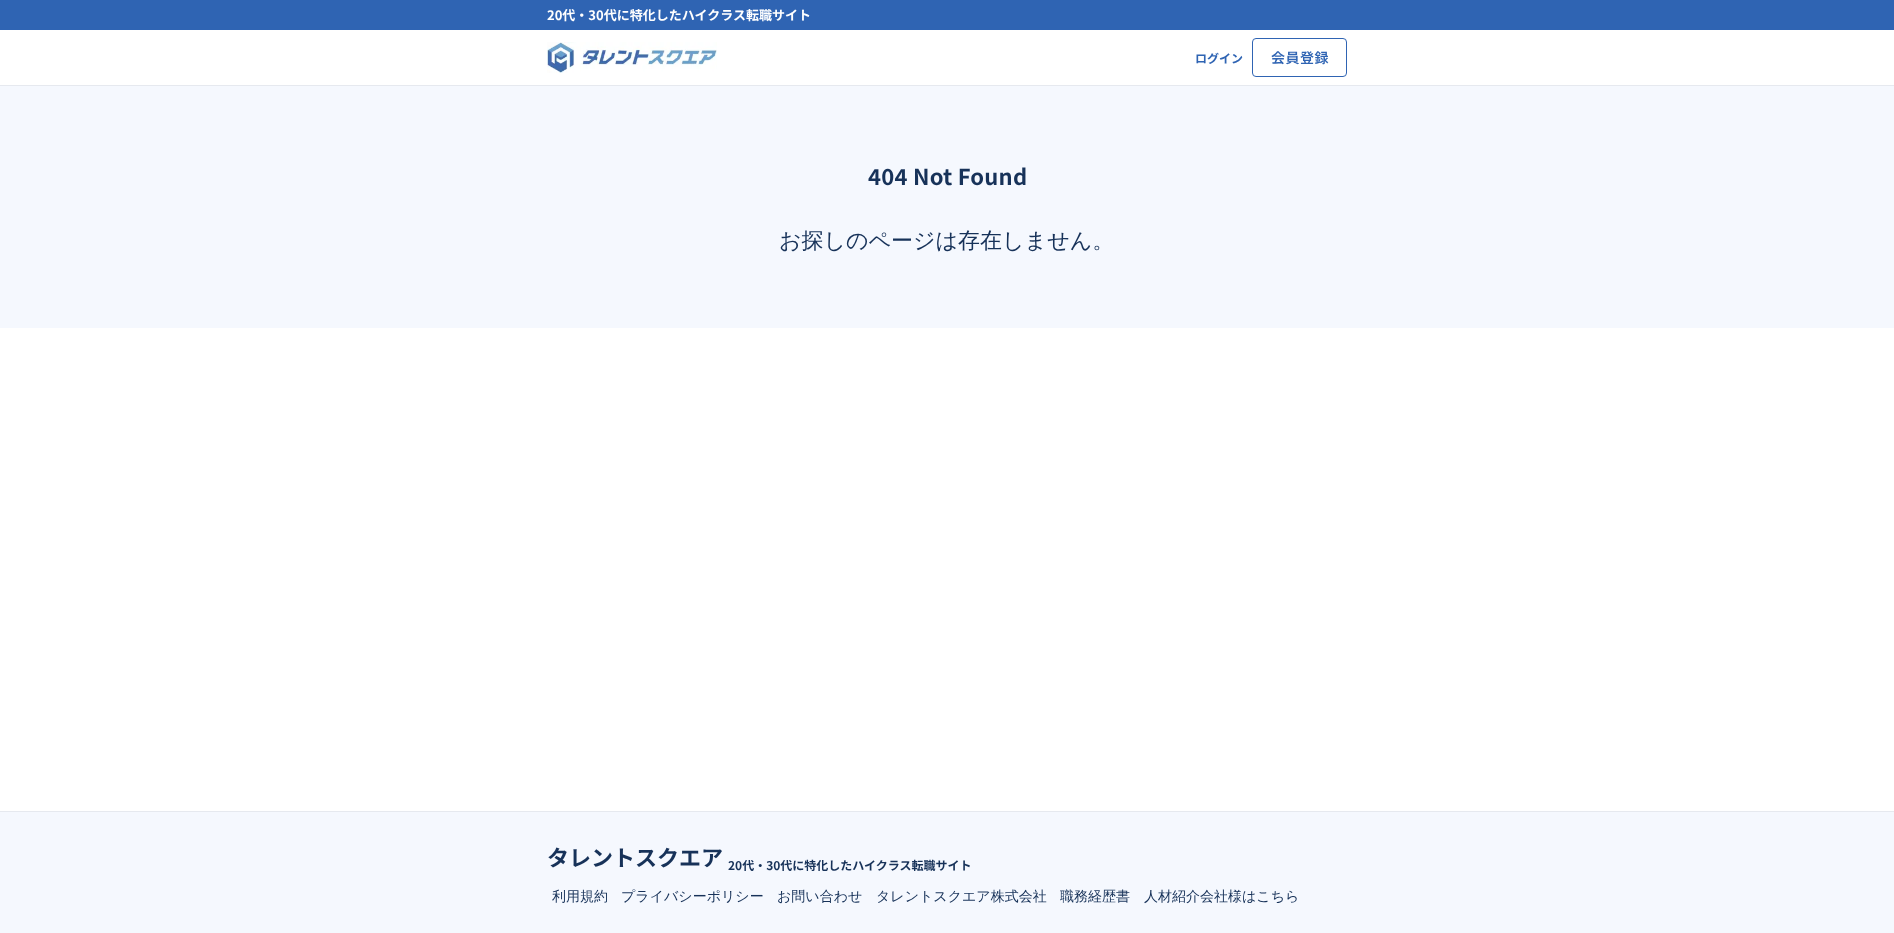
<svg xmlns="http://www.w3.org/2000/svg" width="1894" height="933">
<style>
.a{font:bold 13px Noto Sans JP;fill:#fff}
.b{font:bold 12px Noto Sans JP;fill:#2f64b3}
.c{font:600 14px Noto Sans JP;letter-spacing:0.5px;fill:#2f64b3}
.d{font:100 22px Noto Sans JP;letter-spacing:0.25px;fill:#173259}
.e{font:500 22px WenQuanYi Zen Hei;fill:#173259}
.f{font:bold 22px Noto Sans JP;fill:#173259}
.g{font:bold 12px Noto Sans JP;fill:#173259}
.h{font:500 14px WenQuanYi Zen Hei;fill:#173259}
</style>
<rect width="100%" height="100%" fill="#fff"/>
<path fill="#2f64b3" d="M0 0h1894v30H0z"/>
<path fill="#e6e9ef" d="M0 85h1894v1H0z"/>
<image href="1.png" x="547" y="42" width="170" height="31"/>
<rect fill="none" stroke="#2f64b3" x="1252.5" y="38.5" width="94" height="38" rx="3.5"/>
<path fill="#f5f8fe" d="M0 86h1894v242H0z"/>
<path fill="#f5f8fe" d="M0 812h1894v121H0z"/>
<path fill="#e6e9ef" d="M0 811h1894v1H0z"/>
<text class="a" x="547" y="20">20代・30代に特化したハイクラス転職サイト</text>
<text class="b" x="1195" y="63">ログイン</text>
<text class="c" x="1271" y="63">会員登録</text>
<text class="d" x="868" y="185">404 Not Found</text>
<text class="e" x="779" y="248">お探しのページは存在しません。</text>
<text class="f" x="547" y="866">タレントスクエア</text>
<text class="g" x="728" y="870">20代・30代に特化したハイクラス転職サイト</text>
<text class="h" x="552" y="901">利用規約</text>
<text class="h" x="621" y="901">プライバシーポリシー</text>
<text class="h" x="777" y="901">お問い合わせ</text>
<text class="h" x="876" y="901">タレントスクエア株式会社</text>
<text class="h" x="1060" y="901">職務経歴書</text>
<text class="h" x="1144" y="901">人材紹介会社様はこちら</text>
</svg>
